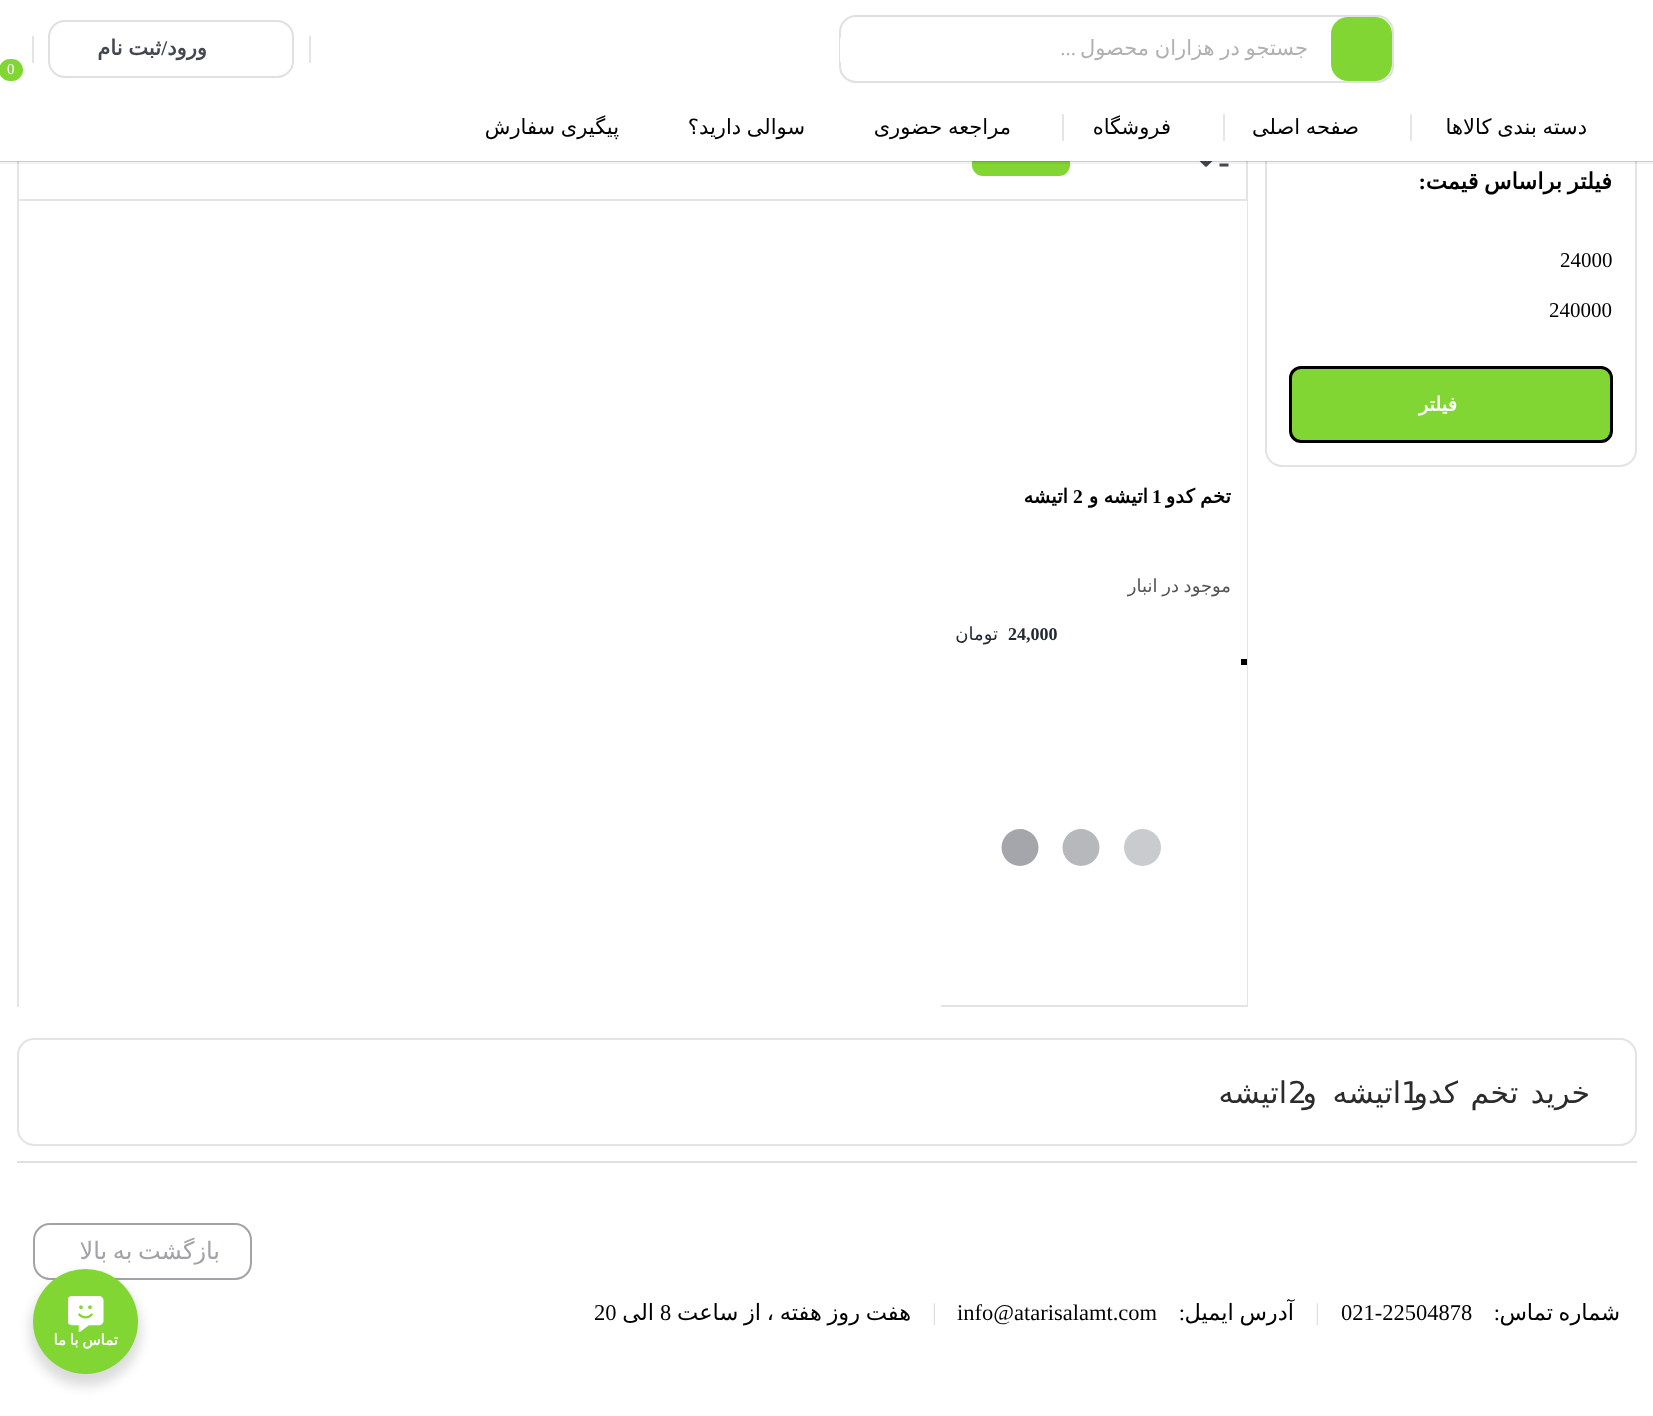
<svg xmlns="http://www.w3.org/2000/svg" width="1653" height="1416">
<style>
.a{font:21px DejaVu Sans;direction:rtl;fill:#b0b0b0}
.b{font:21px Liberation Serif;direction:rtl;fill:#b0b0b0}
.c{font:bold 21px DejaVu Sans;direction:rtl;fill:#424750}
.d{font:bold 21px Liberation Serif;direction:rtl;fill:#424750}
.e{font:15px Liberation Serif;fill:#fff}
.f{font:21px DejaVu Sans;direction:rtl;fill:#000}
.g{font:bold 22.5px DejaVu Sans;direction:rtl;fill:#000}
.h{font:bold 22.5px Liberation Serif;direction:rtl;fill:#000}
.i{font:21px Liberation Serif;fill:#000}
.j{font:bold 19.5px DejaVu Sans;direction:rtl;fill:#fff}
.k{font:bold 19.5px DejaVu Sans;direction:rtl;fill:#000}
.l{font:bold 19.5px Liberation Serif;fill:#000}
.m{font:18px DejaVu Sans;direction:rtl;fill:#535353}
.n{font:bold 18px Liberation Serif;fill:#232933}
.o{font:18px DejaVu Sans;direction:rtl;fill:#232933}
.p{font:30px DejaVu Sans;letter-spacing:-0.1px;fill:#2c2b2b}
.q{font:30px DejaVu Sans;letter-spacing:-0.1px;direction:rtl;fill:#2c2b2b}
.r{font:24px DejaVu Sans;direction:rtl;fill:#a1a3a8}
.s{font:22.5px DejaVu Sans;direction:rtl;fill:#000}
.t{font:22.5px Liberation Serif;direction:rtl;fill:#000}
.u{font:22.5px Liberation Serif;fill:#000}
.v{font:24px Liberation Serif;fill:#dfdfdf}
.w{font:bold 15px DejaVu Sans;direction:rtl;fill:#fff}
</style>
<defs>
<clipPath id="clip1"><path d="M863 38h445v24H863z"/></clipPath>
</defs>
<rect width="100%" height="100%" fill="#fff"/>
<rect fill="none" stroke="#e0e0e0" stroke-width="2" x="840" y="16" width="553" height="66" rx="16"/>
<rect fill="#82d633" x="1331" y="17" width="61" height="64" rx="17"/>
<path fill="#fff" d="M840 38h1v24H840z"/>
<path fill="#e4e4e4" d="M309 36h2v27H309z"/>
<rect fill="none" stroke="#e0e0e2" stroke-width="2" x="49" y="21" width="244" height="56" rx="16"/>
<path fill="#e4e4e4" d="M32 36h2v27H32z"/>
<rect fill="#82d633" x="-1" y="59" width="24" height="22" rx="11"/>
<rect fill="none" stroke="#e3e3e3" stroke-width="2" x="1266" y="141" width="370" height="325" rx="16"/>
<path fill="none" stroke="#e4e4e4" stroke-width="2" d="M18 112h1229v88H18z"/>
<image href="1.png" x="1199" y="161" width="30" height="6"/>
<rect fill="#82d633" x="972" y="137" width="98" height="39" rx="11"/>
<path fill="#0000000d" d="M0 161h1653v3H0z"/>
<path fill="#00000024" d="M0 161h1653v1H0z"/>
<path fill="#fff" d="M17 111h1620v50H17z"/>
<rect fill="#e5e5e5" x="1410" y="114" width="2" height="27" rx="1"/>
<rect fill="#e5e5e5" x="1223" y="114" width="2" height="27" rx="1"/>
<rect fill="#e5e5e5" x="1062" y="114" width="2" height="27" rx="1"/>
<rect fill="#82d633" stroke="#000" stroke-width="3" x="1290.5" y="367.5" width="321" height="74" rx="10.5"/>
<path fill="#e4e4e4" d="M17 201h2v806H17z"/>
<path fill="#e4e4e4" d="M1247 201h1v806H1247z"/>
<path fill="#e4e4e4" d="M941 1005h307v2H941z"/>
<path fill="#000" d="M1241 659h6v6H1241z"/>
<circle fill="#cacbce" cx="1142.5" cy="847.5" r="18.5"/>
<circle fill="#b7b8bc" cx="1081" cy="847.5" r="18.5"/>
<circle fill="#a4a6ab" cx="1020" cy="847.5" r="18.5"/>
<rect fill="none" stroke="#e3e3e3" stroke-width="2" x="18" y="1039" width="1618" height="106" rx="16"/>
<path fill="#e0e0e2" d="M17 1161h1620v2H17z"/>
<rect fill="none" stroke="#a1a3a8" stroke-width="2" x="34" y="1224" width="217" height="55" rx="16"/>
<rect fill="#00000024" filter="blur(6px)" x="30" y="1275" width="111" height="111" rx="55.5"/>
<circle fill="#82d633" cx="85.5" cy="1321.5" r="52.5"/>
<image href="2.png" x="68" y="1296" width="36" height="36"/>
<g clip-path="url(#clip1)">
<text class="a" x="1308" y="55" word-spacing="-1">جستجو در هزاران محصول</text>
</g>
<text class="b" x="1076" y="55">...</text>
<text class="c" x="207" y="55">ورود</text>
<text class="c" x="161" y="55" word-spacing="-1">ثبت نام</text>
<text class="d" x="167" y="55">/</text>
<text class="e" x="7" y="74">0</text>
<text class="f" x="1587" y="134" word-spacing="-1">دسته بندی کالاها</text>
<text class="f" x="1359" y="134" word-spacing="-1">صفحه اصلی</text>
<text class="f" x="1171" y="134">فروشگاه</text>
<text class="f" x="1011" y="134" word-spacing="-1">مراجعه حضوری</text>
<text class="f" x="805" y="134" word-spacing="-1">سوالی دارید؟</text>
<text class="f" x="619" y="134" word-spacing="-1">پیگیری سفارش</text>
<text class="g" x="1612" y="189" word-spacing="-1.5">فیلتر براساس قیمت</text>
<text class="h" x="1426" y="189">:</text>
<text class="i" x="1560" y="267">24000</text>
<text class="i" x="1549" y="317">240000</text>
<text class="j" x="1457" y="411">فیلتر</text>
<text class="k" x="1231" y="503" word-spacing="-1">تخم کدو</text>
<text class="l" x="1152" y="503">1</text>
<text class="k" x="1148" y="503" word-spacing="-1">اتیشه و</text>
<text class="l" x="1073" y="503">2</text>
<text class="k" x="1068" y="503">اتیشه</text>
<text class="m" x="1231" y="592" word-spacing="-1">موجود در انبار</text>
<text class="n" x="1008" y="640">24,000</text>
<text class="o" x="998" y="640">تومان</text>
<text class="p" x="1401" y="1103">1</text>
<text class="q" x="1590" y="1103" word-spacing="3">خرید تخم کدو</text>
<text class="p" x="1288" y="1103">2</text>
<text class="q" x="1401" y="1103" word-spacing="6">اتیشه و</text>
<text class="q" x="1287" y="1103">اتیشه</text>
<text class="r" x="220" y="1259" word-spacing="-2">بازگشت به بالا</text>
<text class="s" x="1620" y="1320" word-spacing="-1.5">شماره تماس</text>
<text class="t" x="1500" y="1320">:</text>
<text class="u" x="1341" y="1320">021-22504878</text>
<text class="v" x="1315" y="1320">|</text>
<text class="s" x="1294" y="1320" word-spacing="-1.5">آدرس ایمیل</text>
<text class="t" x="1185" y="1320">:</text>
<text class="u" x="957" y="1320">info@atarisalamt.com</text>
<text class="v" x="932" y="1320">|</text>
<text class="s" x="911" y="1320" word-spacing="-1.5">هفت روز هفته ، از ساعت</text>
<text class="u" x="660" y="1320">8</text>
<text class="s" x="654" y="1320">الی</text>
<text class="u" x="594" y="1320">20</text>
<text class="w" x="118" y="1345" word-spacing="-1">تماس با ما</text>
</svg>
